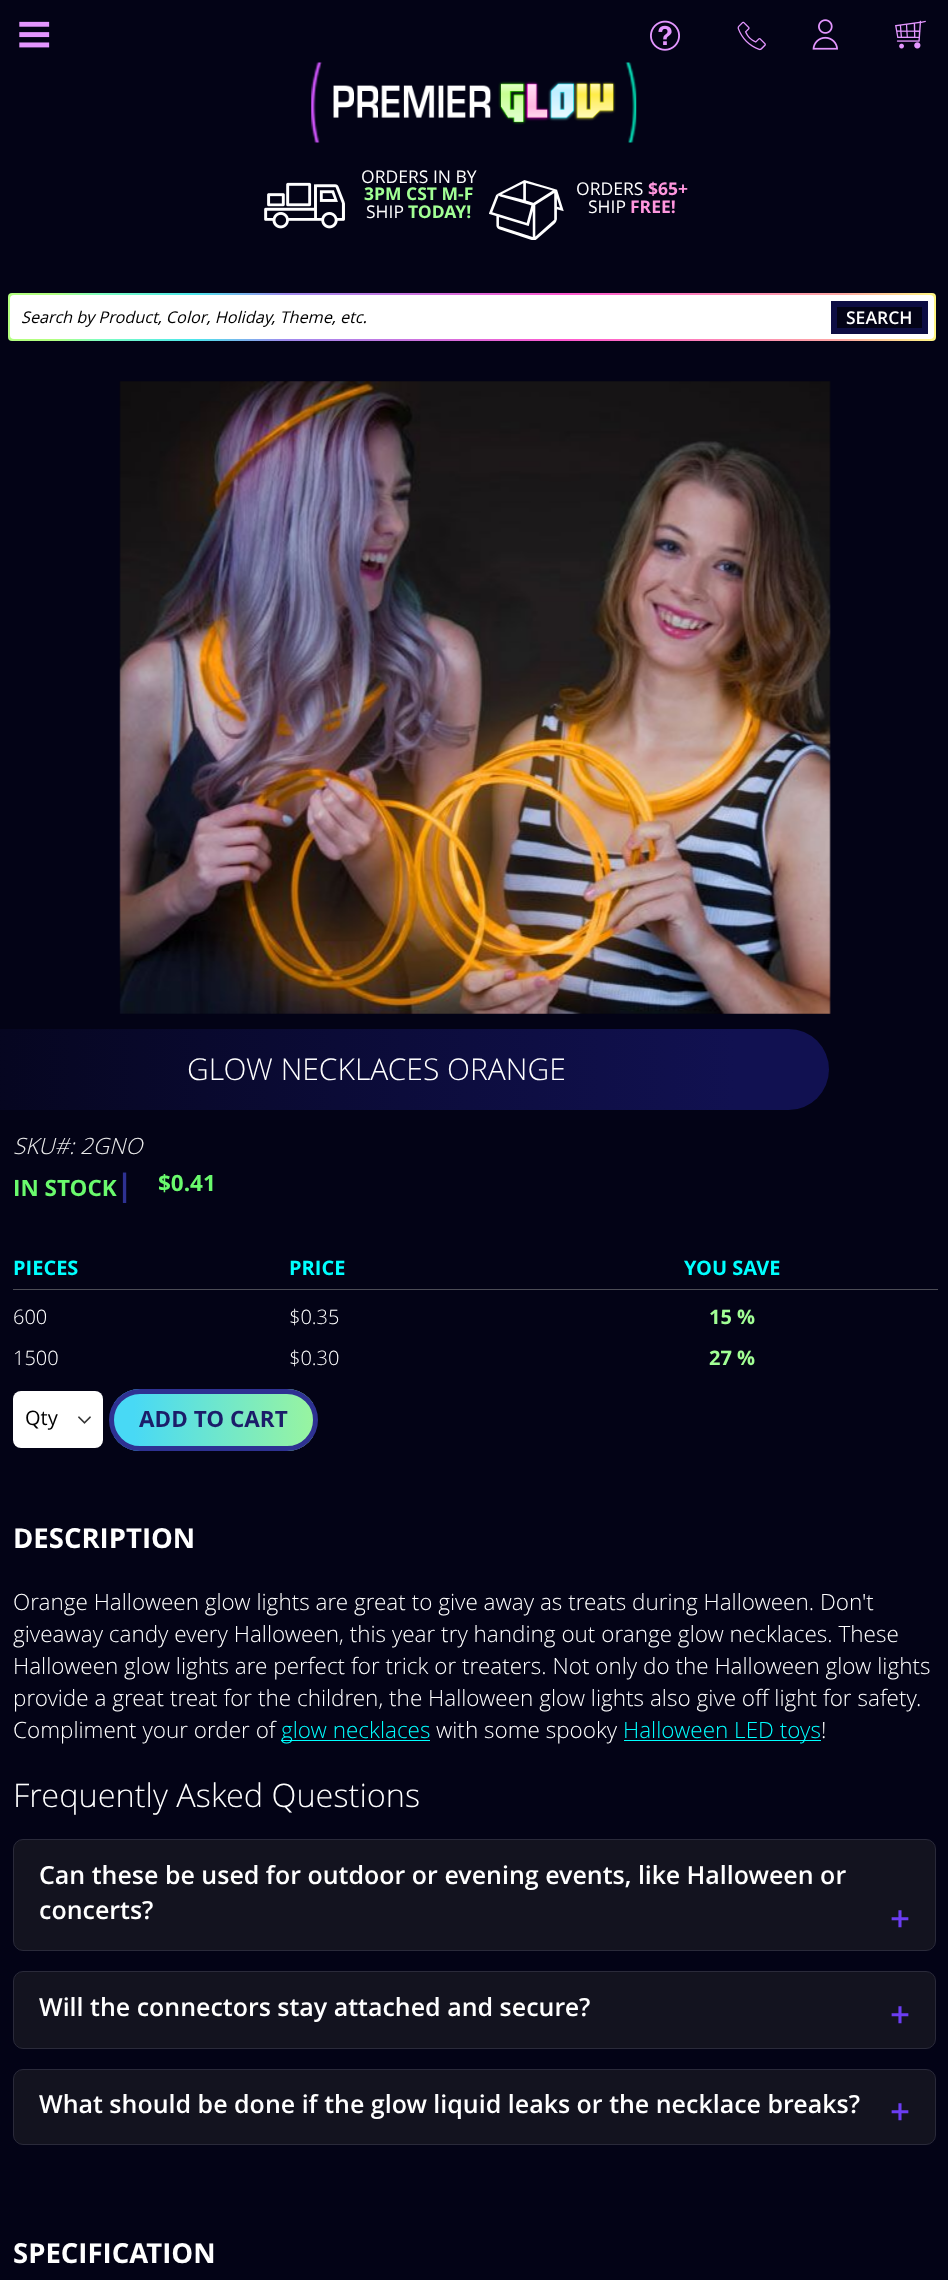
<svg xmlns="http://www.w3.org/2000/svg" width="948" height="2280">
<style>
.a{font:17.5px Open Sans;fill:#fff}
.b{font:bold 17.5px Open Sans;fill:#a2ff95}
.c{font:bold 17.5px Open Sans;fill:#ff96de}
.d{font:italic 16.25px Open Sans;fill:#000}
.e{font:600 17.5px Open Sans;fill:#fff}
.f{font:300 30px Open Sans;fill:#fff}
.g{font:italic 300 22.5px Open Sans;fill:#ebebeb}
.h{font:bold 22.5px Open Sans;fill:#6afa6d}
.i{font:bold 31px Open Sans;fill:#2e3192}
.j{font:bold 20px Open Sans;fill:#0ff}
.k{font:300 20px Open Sans;fill:#fff}
.l{font:bold 20px Open Sans;fill:#a2ff95}
.m{font:20px Open Sans;fill:#000}
.n{font:bold 22.5px Open Sans;fill:#1b1d69}
.o{font:bold 27.5px Open Sans;fill:#fff}
.p{font:300 22.5px Open Sans;fill:#fff}
.q{font:300 22.5px Open Sans;fill:#0ff}
.r{font:300 32.5px Open Sans;fill:#fff}
.s{font:600 25px Open Sans;fill:#fff}
.t{font:600 35px Open Sans;fill:#6c3df3}
</style>
<defs>
<linearGradient id="g1" gradientUnits="userSpaceOnUse" x1="7.5" y1="317" x2="936" y2="317"><stop offset="0.05" stop-color="#b3ff80"/><stop offset="0.1" stop-color="#7efec1"/><stop offset="0.2" stop-color="#4ce7ec"/><stop offset="0.3" stop-color="#a08aee"/><stop offset="0.6" stop-color="#fe59cf"/><stop offset="0.9" stop-color="#fda8a3"/><stop offset="1" stop-color="#fff683"/></linearGradient>
<linearGradient id="g2" gradientUnits="userSpaceOnUse" x1="-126" y1="1069" x2="829" y2="1069"><stop offset="0" stop-color="#040418"/><stop offset="0.9" stop-color="#111151"/></linearGradient>
<clipPath id="clip1"><rect x="109" y="1389" width="209" height="62" rx="31"/></clipPath>
<linearGradient id="g3" gradientUnits="userSpaceOnUse" x1="114" y1="1420" x2="313" y2="1420"><stop offset="0.1" stop-color="#48d9f5"/><stop offset="0.51" stop-color="#6de6ce"/><stop offset="1" stop-color="#98f4a0"/></linearGradient>
</defs>
<rect width="100%" height="100%" fill="#030316"/>
<image href="1.png" x="650" y="20" width="30" height="31"/>
<image href="2.png" x="737" y="21" width="29" height="30"/>
<image href="3.png" x="812" y="19" width="26" height="31"/>
<image href="4.png" x="895" y="20" width="31" height="29"/>
<image href="5.png" x="19" y="21" width="31" height="27"/>
<image href="6.png" x="311" y="62" width="326" height="81"/>
<image href="7.png" x="264" y="182" width="81" height="47"/>
<image href="8.png" x="489" y="180" width="75" height="60"/>
<rect fill="url(#g1)" x="8" y="293" width="928" height="48" rx="4"/>
<rect fill="#fff" x="10" y="295" width="924" height="44" rx="4"/>
<path fill="#030316" stroke="#0d0d43" stroke-width="6" d="M834 304h91v27H834z"/>
<image href="9.png" x="119" y="381" width="712" height="633"/>
<rect fill="url(#g2)" x="-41" y="1029" width="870" height="81" rx="40.5"/>
<path fill="#4d4d56" d="M13 1289h925v1H13z"/>
<rect fill="#fff" x="13" y="1391" width="90" height="57" rx="8"/>
<image href="10.png" x="78" y="1416" width="13" height="8"/>
<g clip-path="url(#clip1)">
<path fill="url(#g3)" d="M114 1389h199v62H114z"/>
</g>
<rect fill="none" stroke="#2e3192" stroke-width="5" x="111.5" y="1391.5" width="204" height="57" rx="28.5"/>
<path fill="#0ff" d="M281 1740h149v1H281z"/>
<path fill="#0ff" d="M624 1740h197v1H624z"/>
<rect fill="#13131f" stroke="#2a2a3a" x="13.5" y="1839.5" width="922" height="111" rx="9.5"/>
<rect fill="#13131f" stroke="#2a2a3a" x="13.5" y="1971.5" width="922" height="77" rx="9.5"/>
<rect fill="#13131f" stroke="#2a2a3a" x="13.5" y="2069.5" width="922" height="75" rx="9.5"/>
<text class="a" x="361" y="183">ORDERS IN BY</text>
<text class="b" x="364" y="200">3PM CST M-F</text>
<text class="a" x="366" y="218">SHIP</text>
<text class="b" x="408" y="218">TODAY!</text>
<text class="a" x="576" y="195">ORDERS</text>
<text class="c" x="648" y="195">$65+</text>
<text class="a" x="588" y="213">SHIP</text>
<text class="c" x="630" y="213">FREE!</text>
<text class="d" x="21" y="323">Search by Product, Color, Holiday, Theme, etc.</text>
<text class="e" x="846" y="324">SEARCH</text>
<text class="f" x="187" y="1080">GLOW NECKLACES ORANGE</text>
<text class="g" x="13" y="1154">SKU#:</text>
<text class="g" x="80" y="1154">2GNO</text>
<text class="h" x="13" y="1196">IN STOCK</text>
<text class="i" x="116" y="1196">|</text>
<text class="h" x="158" y="1191">$0.41</text>
<text class="j" x="13" y="1275">PIECES</text>
<text class="j" x="289" y="1275">PRICE</text>
<text class="j" x="684" y="1275">YOU SAVE</text>
<text class="k" x="13" y="1324">600</text>
<text class="k" x="289" y="1324">$0.35</text>
<text class="l" x="709" y="1324">15 %</text>
<text class="k" x="13" y="1365">1500</text>
<text class="k" x="289" y="1365">$0.30</text>
<text class="l" x="709" y="1365">27 %</text>
<text class="m" x="25" y="1425">Qty</text>
<text class="n" x="139" y="1427">ADD TO CART</text>
<text class="o" x="13" y="1548">DESCRIPTION</text>
<text class="p" x="13" y="1610">Orange Halloween glow lights are great to give away as treats during Halloween. Don't</text>
<text class="p" x="13" y="1642">giveaway candy every Halloween, this year try handing out orange glow necklaces. These</text>
<text class="p" x="13" y="1674">Halloween glow lights are perfect for trick or treaters. Not only do the Halloween glow lights</text>
<text class="p" x="13" y="1706">provide a great treat for the children, the Halloween glow lights also give off light for safety.</text>
<text class="p" x="13" y="1738">Compliment your order of</text>
<text class="q" x="281" y="1738">glow necklaces</text>
<text class="p" x="436" y="1738">with some spooky</text>
<text class="q" x="623" y="1738">Halloween LED toys</text>
<text class="p" x="821" y="1738">!</text>
<text class="r" x="13" y="1807">Frequently Asked Questions</text>
<text class="s" x="39" y="1884">Can these be used for outdoor or evening events, like Halloween or</text>
<text class="s" x="39" y="1919">concerts?</text>
<text class="t" x="890" y="1931">+</text>
<text class="s" x="39" y="2016">Will the connectors stay attached and secure?</text>
<text class="t" x="890" y="2027">+</text>
<text class="s" x="39" y="2113">What should be done if the glow liquid leaks or the necklace breaks?</text>
<text class="t" x="890" y="2124">+</text>
<text class="o" x="13" y="2263">SPECIFICATION</text>
</svg>
